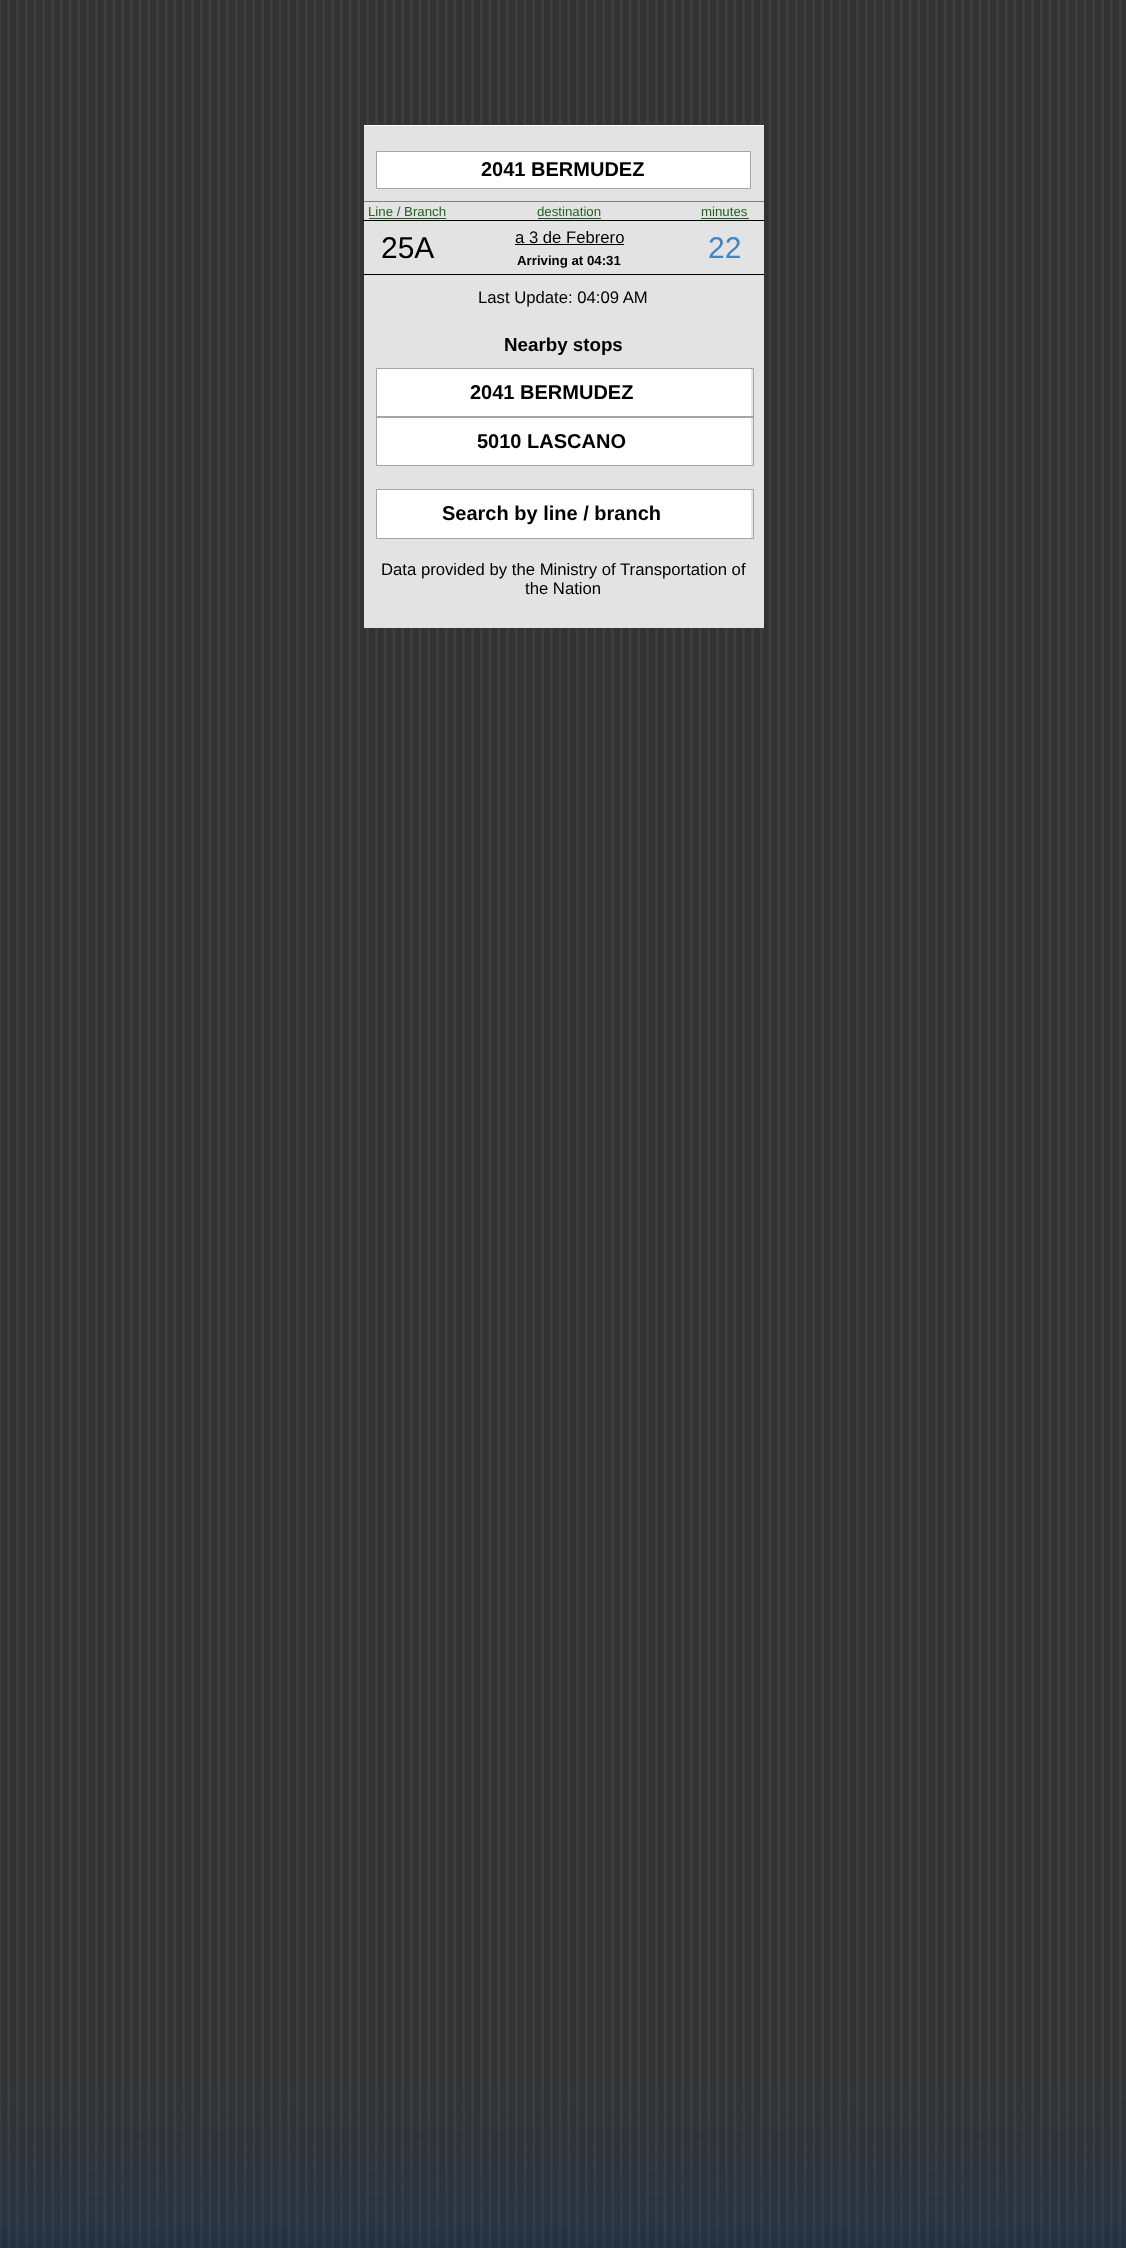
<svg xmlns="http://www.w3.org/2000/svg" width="1126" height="2248">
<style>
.a{font:bold 20px Liberation Sans;fill:#000}
.b{font:13.25px Liberation Sans;fill:#225f20}
.c{font:30px Liberation Sans;fill:#000}
.d{font:16.7px Liberation Sans;fill:#000}
.e{font:bold 13.25px Liberation Sans;fill:#000}
.f{font:30px Liberation Sans;fill:#3f86c8}
.g{font:bold 18.75px Liberation Sans;fill:#000}
</style>
<rect width="100%" height="100%" fill="#fff"/>
<image href="1.png" x="0" y="0" width="1126" height="2248"/>
<path fill="#e3e3e3" d="M364 126h400v502H364z"/>
<path fill="#fff" d="M364 125h400v1H364z"/>
<path fill="#fff" stroke="#a5a5a5" d="M376.5 151.5h374v37H376.5z"/>
<path fill="#808080" d="M364 201h400v1H364z"/>
<path fill="#000" d="M363 220h401v1H363z"/>
<path fill="#225f20" d="M369 218h77v1H369z"/>
<path fill="#225f20" d="M538 218h63v1H538z"/>
<path fill="#225f20" d="M701 218h48v1H701z"/>
<path fill="#000" d="M363 274h401v1H363z"/>
<path fill="#000" d="M515 244h109v1H515z"/>
<path fill="#fff" d="M377 369h374v96H377z"/>
<path fill="none" stroke="#a5a5a5" d="M376.5 368.5h377v49H376.5z"/>
<path fill="none" stroke="#a5a5a5" d="M376.5 416.5h377v49H376.5z"/>
<path fill="#fff" d="M377 490h374v48H377z"/>
<path fill="none" stroke="#a5a5a5" d="M376.5 489.5h377v49H376.5z"/>
<text class="a" x="481" y="176">2041 BERMUDEZ</text>
<text class="b" x="368" y="216">Line / Branch</text>
<text class="b" x="537" y="216">destination</text>
<text class="b" x="701" y="216">minutes</text>
<text class="c" x="381" y="258">25A</text>
<text class="d" x="515" y="243">a 3 de Febrero</text>
<text class="e" x="517" y="265">Arriving at 04:31</text>
<text class="f" x="708" y="258">22</text>
<text class="d" x="478" y="303">Last Update: 04:09 AM</text>
<text class="g" x="504" y="351">Nearby stops</text>
<text class="a" x="470" y="399">2041 BERMUDEZ</text>
<text class="a" x="477" y="448">5010 LASCANO</text>
<text class="a" x="442" y="520">Search by line / branch</text>
<text class="d" x="381" y="575">Data provided by the Ministry of Transportation of</text>
<text class="d" x="525" y="594">the Nation</text>
</svg>
